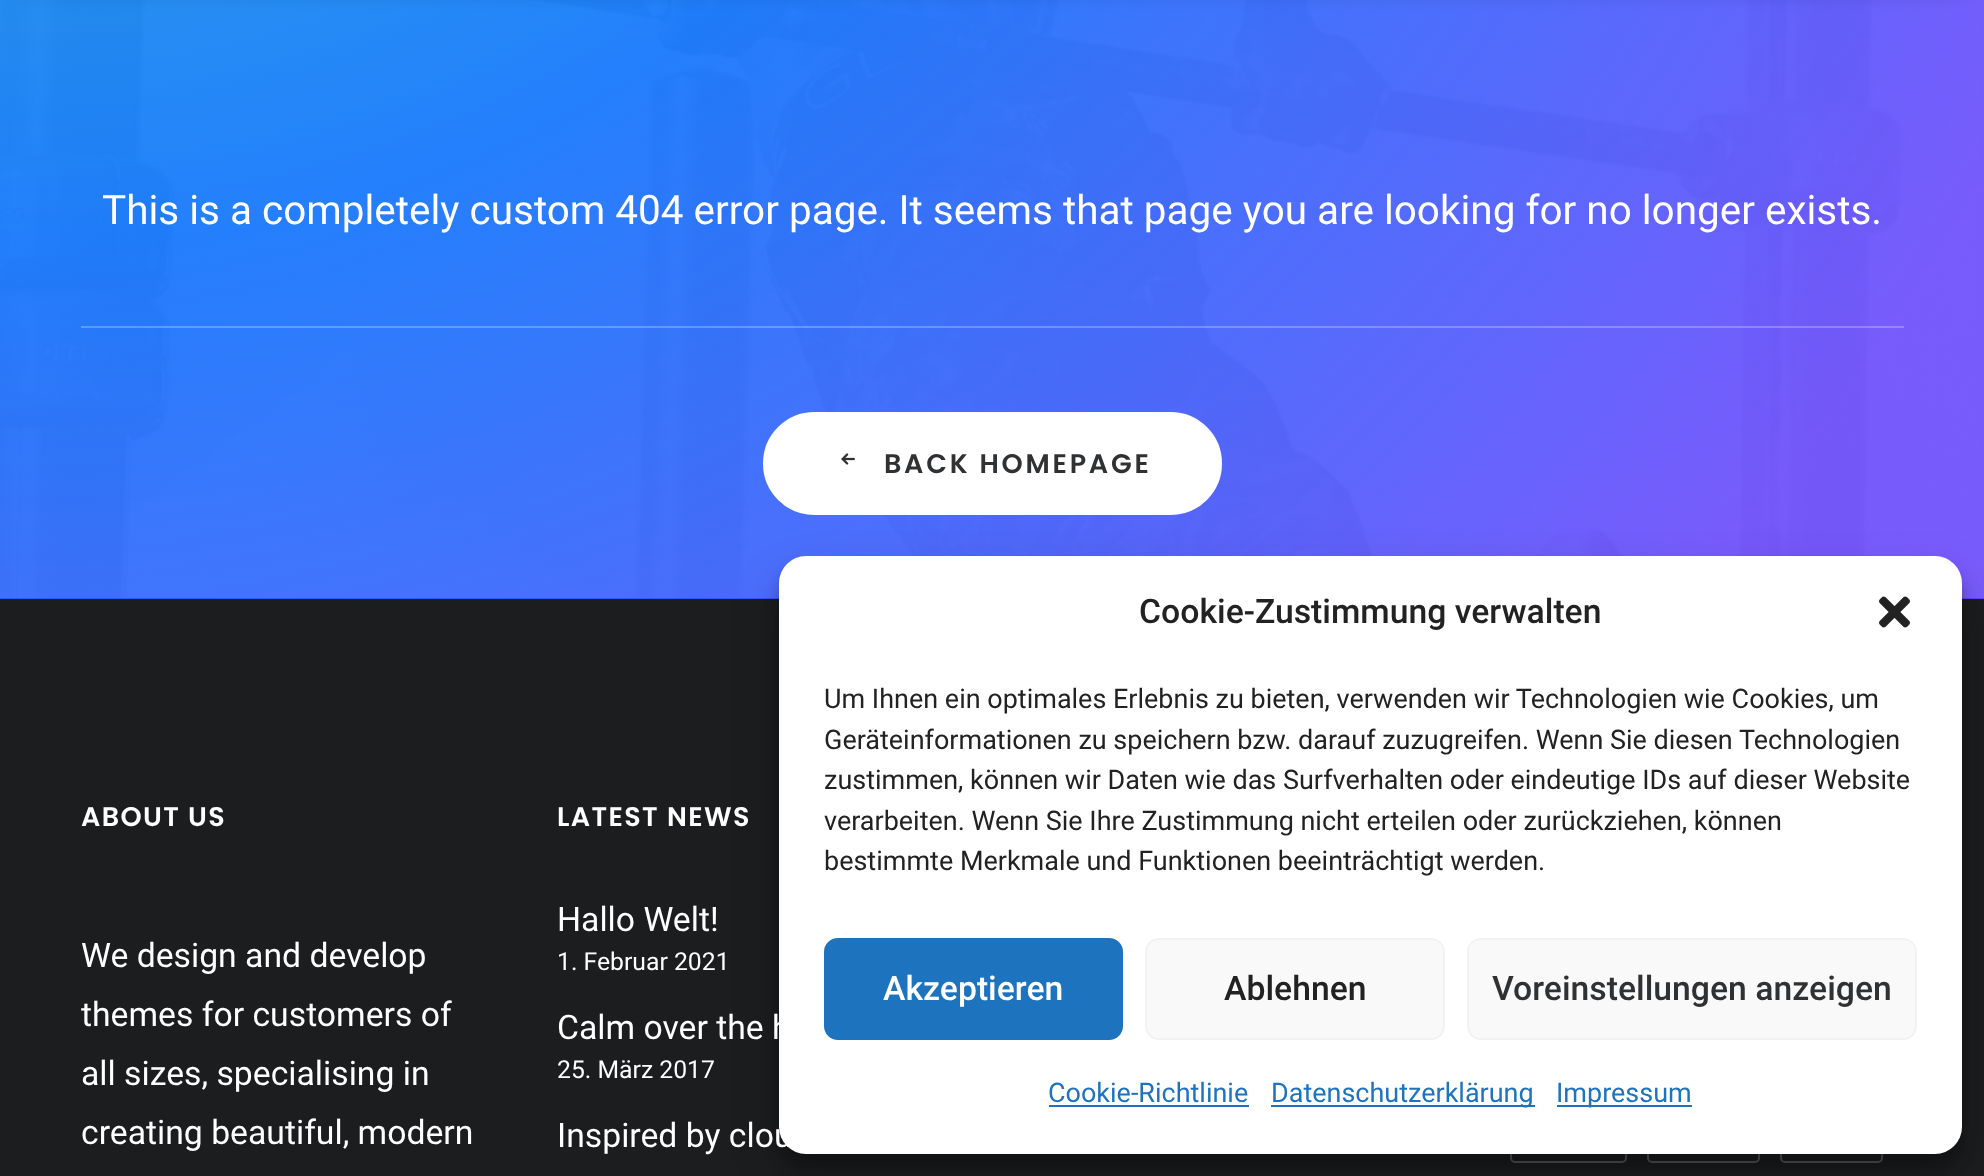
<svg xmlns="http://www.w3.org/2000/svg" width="1984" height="1176">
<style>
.a{font:40.5px Roboto;fill:#fff}
.b{font:600 27px Poppins;letter-spacing:2.75px;fill:#303133}
.c{font:600 27px Poppins;letter-spacing:1.4px;fill:#fff}
.d{font:33.75px Roboto;fill:#fff}
.e{font:24.75px Roboto;fill:#fff}
.f{font:500 33.75px Roboto;fill:#222}
.g{font:27px Roboto;fill:#222}
.h{font:500 33.75px Roboto;fill:#fff}
.i{font:500 33.75px Roboto;fill:#303133}
.j{font:27px Roboto;fill:#1e73be}
</style>
<defs>
<radialGradient id="g1" gradientUnits="userSpaceOnUse" cx="0" cy="-972" r="2531"><stop offset="0.09" stop-color="#0cb4ce"/><stop offset="0.48" stop-color="#006cff"/><stop offset="0.91" stop-color="#6442ff"/></radialGradient>
<radialGradient id="g2" gradientUnits="userSpaceOnUse" cx="0" cy="-972" r="2531"><stop offset="0.09" stop-color="#0cb4ce" stop-opacity="0.85"/><stop offset="0.48" stop-color="#006cff" stop-opacity="0.85"/><stop offset="0.91" stop-color="#6442ff" stop-opacity="0.85"/></radialGradient>
</defs>
<rect width="100%" height="100%" fill="#fff"/>
<path fill="url(#g1)" d="M0 0h1984v599H0z"/>
<image href="1.png" x="0" y="0" width="1984" height="598"/>
<path fill="url(#g2)" d="M0 0h1984v598H0z"/>
<path fill="#00000099" filter="blur(11px)" d="M23 -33h1939v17H23z"/>
<path fill="#ffffff40" d="M81 326h1823v2H81z"/>
<rect fill="#fff" stroke="#fff" stroke-width="2" x="764" y="413" width="457" height="101" rx="50.5"/>
<image href="2.png" x="841" y="453" width="14" height="12"/>
<path fill="#1b1d1f" d="M0 599h1984v577H0z"/>
<rect fill="none" stroke="#545657" stroke-width="2" x="1511" y="1113" width="115" height="49" rx="4"/>
<rect fill="none" stroke="#545657" stroke-width="2" x="1648" y="1113" width="111" height="49" rx="4"/>
<rect fill="none" stroke="#545657" stroke-width="2" x="1781" y="1113" width="101" height="49" rx="4"/>
<rect fill="#0000003b" filter="blur(7px)" x="779" y="569" width="1183" height="599" rx="27"/>
<rect fill="#00000030" filter="blur(22.5px)" x="779" y="578" width="1183" height="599" rx="27"/>
<rect fill="#fff" x="779" y="556" width="1183" height="598" rx="27"/>
<image href="3.png" x="1879" y="596" width="31" height="32"/>
<rect fill="#1e73be" stroke="#1e73be" stroke-width="2" x="825" y="939" width="297" height="100" rx="13"/>
<rect fill="#f9f9f9" stroke="#f2f2f2" stroke-width="2" x="1146" y="939" width="298" height="100" rx="13"/>
<rect fill="#f9f9f9" stroke="#f2f2f2" stroke-width="2" x="1468" y="939" width="448" height="100" rx="13"/>
<path fill="#1e73be" d="M1049 1105h200v2H1049z"/>
<path fill="#1e73be" d="M1271 1105h264v2H1271z"/>
<path fill="#1e73be" d="M1557 1105h135v2H1557z"/>
<text class="a" x="102" y="224">This is a completely custom 404 error page. It seems that page you are looking for no longer exists.</text>
<text class="b" x="884" y="473">BACK HOMEPAGE</text>
<text class="c" x="81" y="826">ABOUT US</text>
<text class="d" x="81" y="967">We design and develop</text>
<text class="d" x="81" y="1026">themes for customers of</text>
<text class="d" x="81" y="1085">all sizes, specialising in</text>
<text class="d" x="81" y="1144">creating beautiful, modern</text>
<text class="c" x="557" y="826">LATEST NEWS</text>
<text class="d" x="557" y="931">Hallo Welt!</text>
<text class="e" x="557" y="970">1. Februar 2021</text>
<text class="d" x="557" y="1039">Calm over the h</text>
<text class="e" x="557" y="1078">25. März 2017</text>
<text class="d" x="557" y="1147">Inspired by clou</text>
<text class="f" x="1139" y="623">Cookie-Zustimmung verwalten</text>
<text class="g" x="824" y="708">Um Ihnen ein optimales Erlebnis zu bieten, verwenden wir Technologien wie Cookies, um</text>
<text class="g" x="824" y="749">Geräteinformationen zu speichern bzw. darauf zuzugreifen. Wenn Sie diesen Technologien</text>
<text class="g" x="824" y="789">zustimmen, können wir Daten wie das Surfverhalten oder eindeutige IDs auf dieser Website</text>
<text class="g" x="824" y="830">verarbeiten. Wenn Sie Ihre Zustimmung nicht erteilen oder zurückziehen, können</text>
<text class="g" x="824" y="870">bestimmte Merkmale und Funktionen beeinträchtigt werden.</text>
<text class="h" x="883" y="1000">Akzeptieren</text>
<text class="f" x="1224" y="1000">Ablehnen</text>
<text class="i" x="1492" y="1000">Voreinstellungen anzeigen</text>
<text class="j" x="1048" y="1102">Cookie-Richtlinie</text>
<text class="j" x="1271" y="1102">Datenschutzerklärung</text>
<text class="j" x="1556" y="1102">Impressum</text>
</svg>
